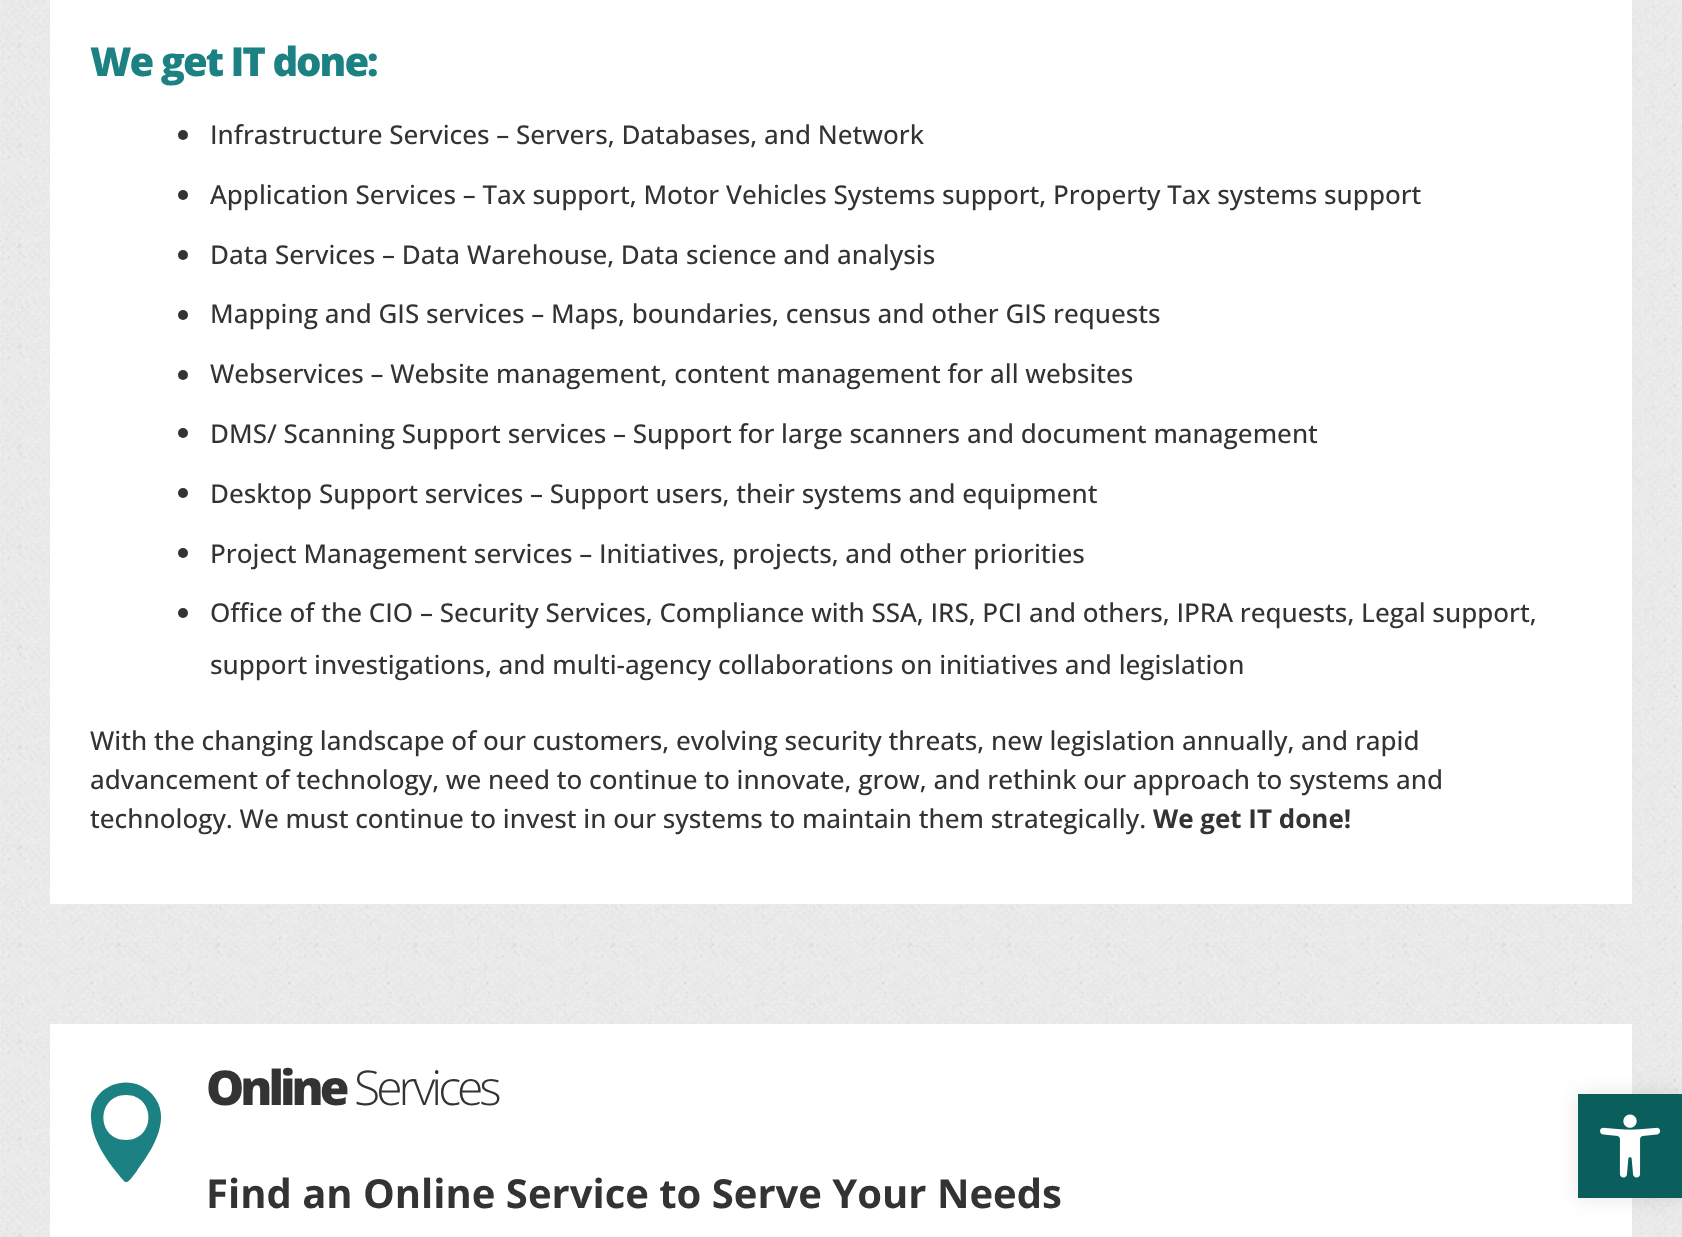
<svg xmlns="http://www.w3.org/2000/svg" width="1682" height="1237">
<style>
.a{font:800 40px Open Sans;letter-spacing:-2px;fill:#1c8182}
.b{font:500 26px Open Sans;fill:#333}
.c{font:bold 26px Open Sans;fill:#333}
.d{font:800 48px Open Sans;letter-spacing:-4px;fill:#333}
.e{font:300 48px Open Sans;letter-spacing:-4px;fill:#333}
.f{font:bold 40px Open Sans;fill:#333}
</style>
<rect width="100%" height="100%" fill="#fff"/>
<image href="1.png" x="0" y="0" width="1682" height="904"/>
<path fill="#fff" d="M50 0h1582v904H50z"/>
<circle fill="#333" cx="183" cy="135" r="5"/>
<circle fill="#333" cx="183" cy="195" r="5"/>
<circle fill="#333" cx="183" cy="255" r="5"/>
<circle fill="#333" cx="183" cy="315" r="5"/>
<circle fill="#333" cx="183" cy="375" r="5"/>
<circle fill="#333" cx="183" cy="433" r="5"/>
<circle fill="#333" cx="183" cy="493" r="5"/>
<circle fill="#333" cx="183" cy="553" r="5"/>
<circle fill="#333" cx="183" cy="613" r="5"/>
<image href="2.png" x="0" y="904" width="1682" height="333"/>
<path fill="#fff" d="M50 1024h1582v213H50z"/>
<path fill="#1c8182" d="M124 1181l1 1h2c2 0 10-11 11-13c15-20 35-52 14-75c-22-24-63-8-61 24c1 23 18 46 33 63zm2-86c30 0 30 45 0 45c-30 0-30-45 0-45z"/>
<path fill="#0000001a" filter="blur(10px)" d="M1578 1094h104v104H1578z"/>
<path fill="#0a5f5d" d="M1578 1094h104v104H1578z"/>
<image href="3.png" x="1600" y="1114" width="61" height="64"/>
<text class="a" x="90" y="76">We get IT done:</text>
<text class="b" x="210" y="144">Infrastructure Services – Servers, Databases, and Network</text>
<text class="b" x="210" y="204">Application Services – Tax support, Motor Vehicles Systems support, Property Tax systems support</text>
<text class="b" x="210" y="264">Data Services – Data Warehouse, Data science and analysis</text>
<text class="b" x="210" y="323">Mapping and GIS services – Maps, boundaries, census and other GIS requests</text>
<text class="b" x="210" y="383">Webservices – Website management, content management for all websites</text>
<text class="b" x="210" y="443">DMS/ Scanning Support services – Support for large scanners and document management</text>
<text class="b" x="210" y="503">Desktop Support services – Support users, their systems and equipment</text>
<text class="b" x="210" y="563">Project Management services – Initiatives, projects, and other priorities</text>
<text class="b" x="210" y="622">Office of the CIO – Security Services, Compliance with SSA, IRS, PCI and others, IPRA requests, Legal support,</text>
<text class="b" x="210" y="674">support investigations, and multi-agency collaborations on initiatives and legislation</text>
<text class="b" x="90" y="750">With the changing landscape of our customers, evolving security threats, new legislation annually, and rapid</text>
<text class="b" x="90" y="789">advancement of technology, we need to continue to innovate, grow, and rethink our approach to systems and</text>
<text class="b" x="90" y="828">technology. We must continue to invest in our systems to maintain them strategically.</text>
<text class="c" x="1153" y="828">We get IT done!</text>
<text class="d" x="206" y="1105">Online</text>
<text class="e" x="354" y="1105">Services</text>
<text class="f" x="206" y="1208">Find an Online Service to Serve Your Needs</text>
</svg>
